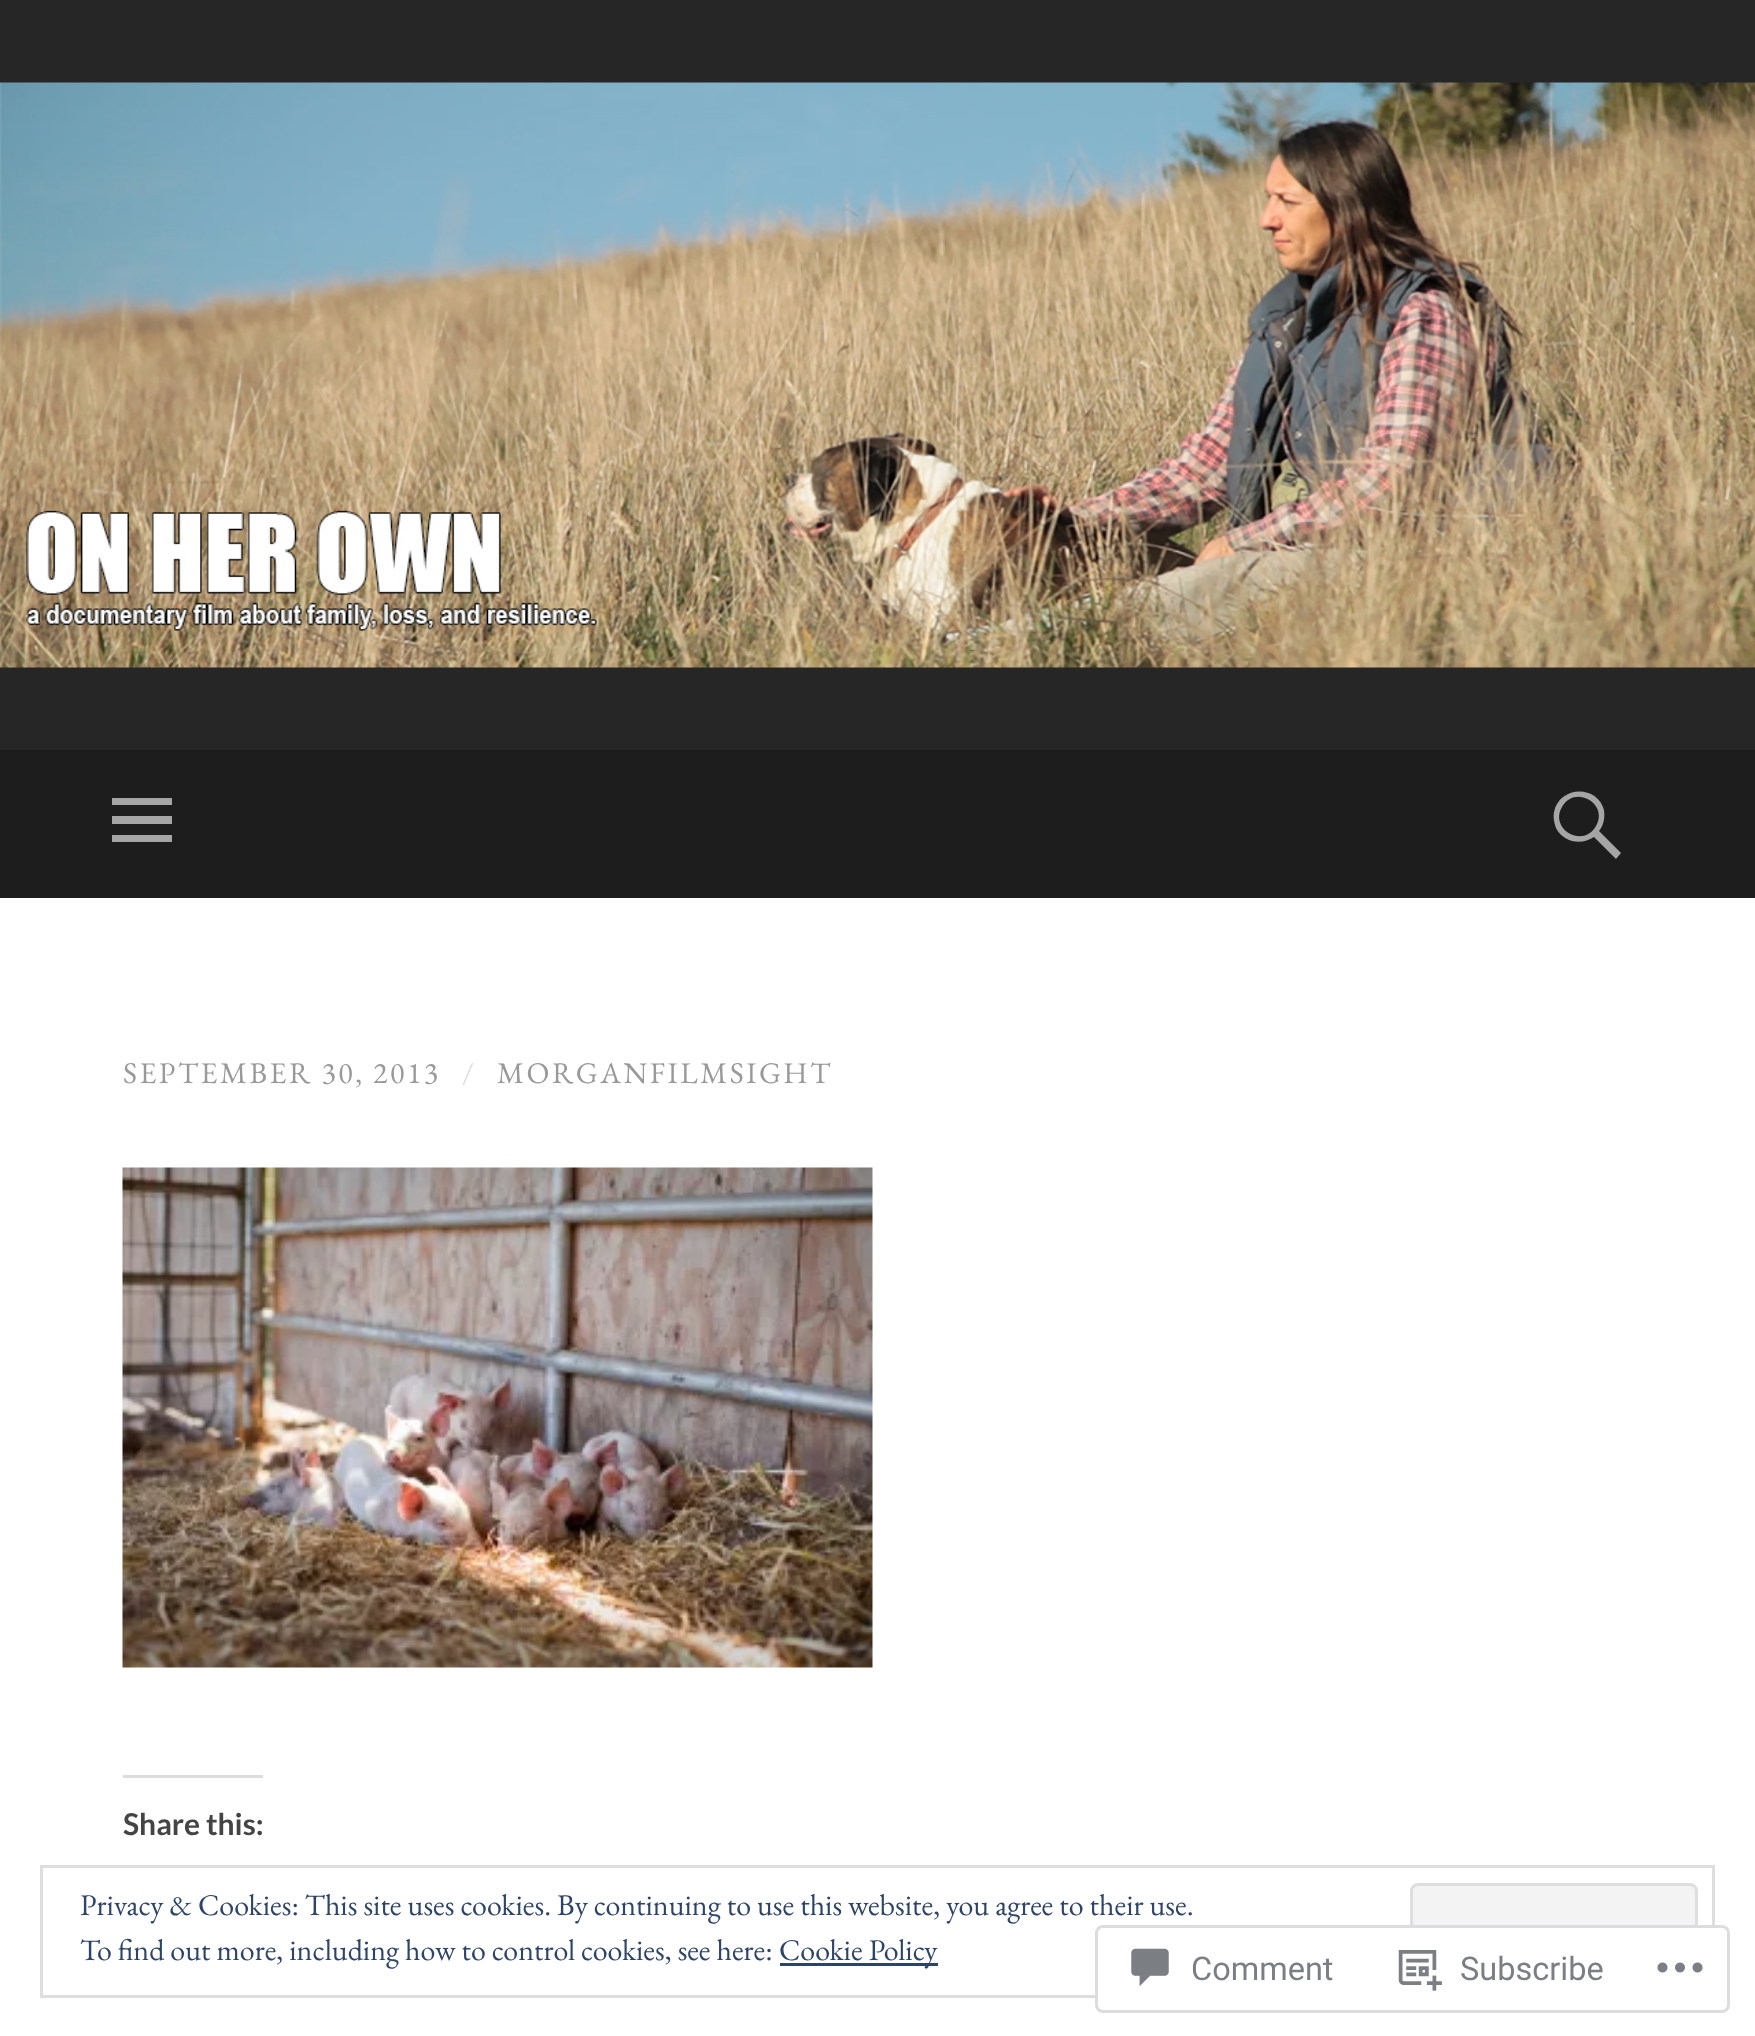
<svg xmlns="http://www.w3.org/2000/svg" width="1755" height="2036">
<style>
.a{font:30px EB Garamond;letter-spacing:2.5px;fill:#999}
.b{font:30px EB Garamond;letter-spacing:2.5px;fill:#ddd}
.c{font:bold 30px Lato;fill:#444}
.d{font:30px EB Garamond;fill:#2e4467}
.e{font:32.5px Roboto;fill:#7b7f85}
</style>
<rect width="100%" height="100%" fill="#fff"/>
<path fill="#262626" d="M0 0h1755v750H0z"/>
<image href="1.png" x="0" y="82" width="1755" height="586"/>
<path fill="#1d1d1d" d="M0 750h1755v148H0z"/>
<path fill="#a5a5a5" d="M112 842v-7h60v7zm0-44h60v7h-60zm0 26v-8h60v8z"/>
<path fill="#a5a5a5" d="M1621 853l-5 6l-22-22c-13 9-31 5-38-9c-2-5-3-11-2-16c5-26 43-28 50-2c1 7 0 15-5 21zm-59-46c-13 22 21 42 34 19c13-22-21-42-34-19z"/>
<image href="2.png" x="122" y="1167" width="751" height="501"/>
<path fill="#dcdcde" d="M123 1775h140v3H123z"/>
<path fill="none" stroke="#dedede" stroke-width="3" d="M41.5 1866.5h1672v130H41.5z"/>
<rect fill="#f3f3f3" stroke="#dedede" stroke-width="3" x="1411.5" y="1884.5" width="285" height="94" rx="6.5"/>
<path fill="#2e4467" d="M780 1963h158v3H780z"/>
<rect fill="#fffffffa" x="1095" y="1925" width="635" height="88" rx="8"/>
<rect fill="none" stroke="#dcdcdefa" stroke-width="3" x="1096.5" y="1926.5" width="632" height="85" rx="6.5"/>
<image href="3.png" x="1131" y="1948" width="38" height="39"/>
<image href="4.png" x="1398" y="1950" width="44" height="41"/>
<image href="5.png" x="1657" y="1962" width="46" height="11"/>
<text class="a" x="123" y="1083">SEPTEMBER 30, 2013</text>
<text class="b" x="462" y="1083">/</text>
<text class="a" x="497" y="1083">MORGANFILMSIGHT</text>
<text class="c" x="123" y="1835">Share this:</text>
<text class="d" x="80" y="1915">Privacy &amp; Cookies: This site uses cookies. By continuing to use this website, you agree to their use.</text>
<text class="d" x="80" y="1960">To find out more, including how to control cookies, see here:</text>
<text class="d" x="779" y="1960">Cookie Policy</text>
<text class="e" x="1191" y="1980">Comment</text>
<text class="e" x="1460" y="1980">Subscribe</text>
</svg>
